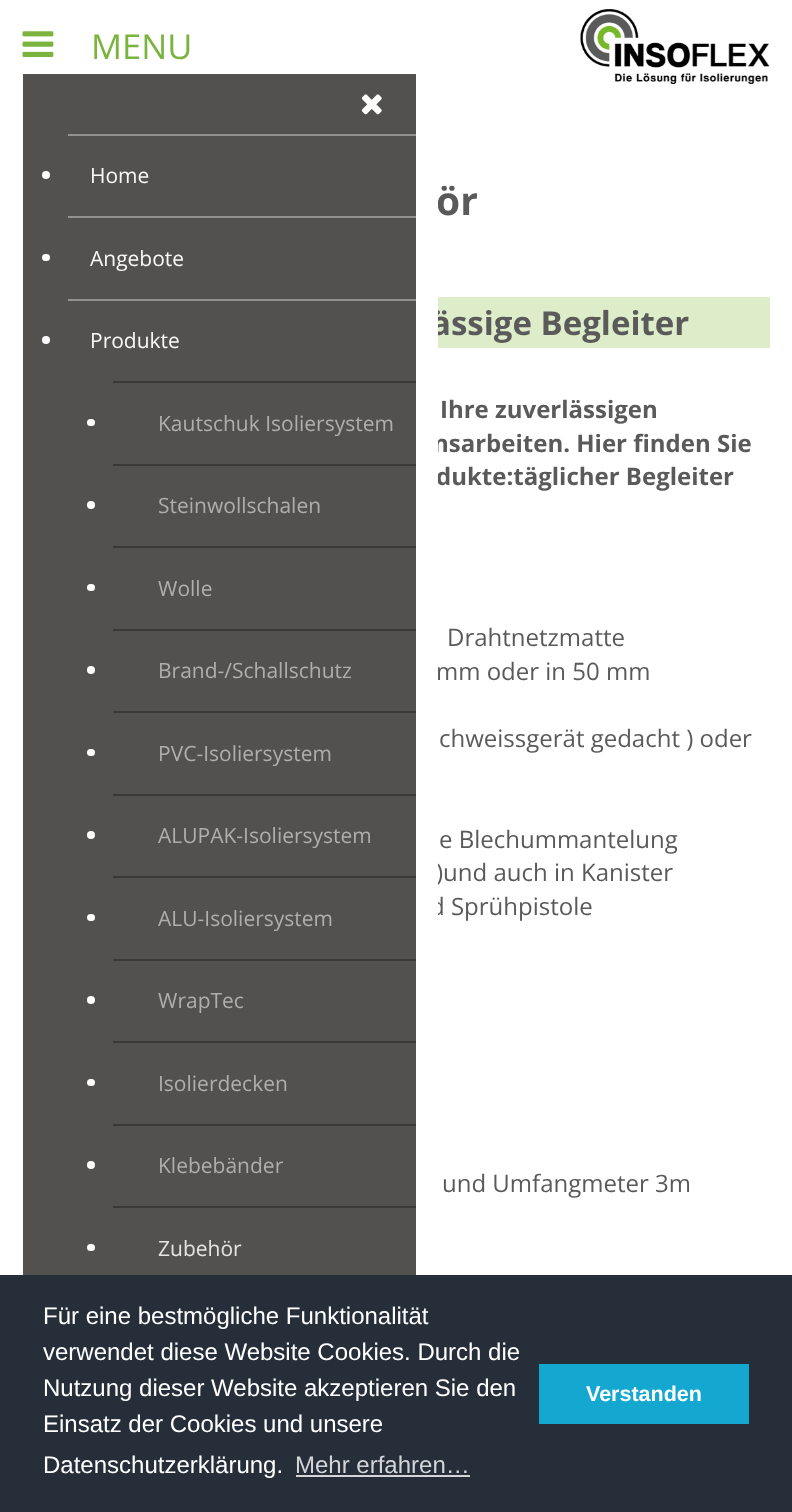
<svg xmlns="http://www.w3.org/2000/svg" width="792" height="1512">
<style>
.a{font:34.5px Open Sans;fill:#7ab43f}
.b{font:21px Open Sans;fill:#f8f8f8}
.c{font:21px Open Sans;fill:#aeaeae}
.d{font:21px Open Sans;fill:#e4e4e4}
.e{font:bold 39px Open Sans;fill:#5a5a5a}
.f{font:bold 33px Open Sans;fill:#5a5a5a}
.g{font:bold 24px Open Sans;fill:#5a5a5a}
.h{font:24px Open Sans;fill:#5a5a5a}
.i{font:24px Liberation Sans;fill:#fff}
.j{font:24px Liberation Sans;fill:#d3d5d7}
.k{font:bold 21.5px Liberation Sans;fill:#fff}
</style>
<rect width="100%" height="100%" fill="#fff"/>
<image href="1.png" x="22" y="31" width="32" height="26"/>
<path fill="#52514f" d="M23 74h393v1201H23z"/>
<image href="2.png" x="361" y="94" width="21" height="21"/>
<circle fill="#fff" cx="46" cy="175" r="4"/>
<path fill="#919191" d="M68 134h348v2H68z"/>
<rect fill="#fff" x="42" y="254" width="8" height="7" rx="3.5"/>
<path fill="#919191" d="M68 216h348v2H68z"/>
<circle fill="#fff" cx="46" cy="340" r="4"/>
<path fill="#919191" d="M68 299h348v2H68z"/>
<rect fill="#fff" x="87" y="419" width="8" height="7" rx="3.5"/>
<path fill="#393939" d="M113 381h303v2H113z"/>
<circle fill="#fff" cx="91" cy="505" r="4"/>
<path fill="#393939" d="M113 464h303v2H113z"/>
<rect fill="#fff" x="87" y="584" width="8" height="7" rx="3.5"/>
<path fill="#393939" d="M113 546h303v2H113z"/>
<circle fill="#fff" cx="91" cy="670" r="4"/>
<path fill="#393939" d="M113 629h303v2H113z"/>
<rect fill="#fff" x="87" y="749" width="8" height="7" rx="3.5"/>
<path fill="#393939" d="M113 711h303v2H113z"/>
<circle fill="#fff" cx="91" cy="835" r="4"/>
<path fill="#393939" d="M113 794h303v2H113z"/>
<rect fill="#fff" x="87" y="914" width="8" height="7" rx="3.5"/>
<path fill="#393939" d="M113 876h303v2H113z"/>
<circle fill="#fff" cx="91" cy="1000" r="4"/>
<path fill="#393939" d="M113 959h303v2H113z"/>
<rect fill="#fff" x="87" y="1079" width="8" height="7" rx="3.5"/>
<path fill="#393939" d="M113 1041h303v2H113z"/>
<circle fill="#fff" cx="91" cy="1165" r="4"/>
<path fill="#393939" d="M113 1124h303v2H113z"/>
<rect fill="#fff" x="87" y="1244" width="8" height="7" rx="3.5"/>
<path fill="#393939" d="M113 1206h303v2H113z"/>
<image href="3.png" x="580" y="9" width="190" height="75"/>
<path fill="#ddedc9" d="M438 297h332v51H438z"/>
<path fill="#252e39" d="M0 1275h792v237H0z"/>
<path fill="#d3d5d7" d="M296 1475h174v2H296z"/>
<path fill="#14a7d0" d="M539 1364h210v60H539z"/>
<text class="a" x="91" y="59">MENU</text>
<text class="b" x="90" y="183">Home</text>
<text class="b" x="90" y="266">Angebote</text>
<text class="b" x="90" y="348">Produkte</text>
<text class="c" x="158" y="431">Kautschuk Isoliersystem</text>
<text class="c" x="158" y="513">Steinwollschalen</text>
<text class="c" x="158" y="596">Wolle</text>
<text class="c" x="158" y="678">Brand-/Schallschutz</text>
<text class="c" x="158" y="761">PVC-Isoliersystem</text>
<text class="c" x="158" y="843">ALUPAK-Isoliersystem</text>
<text class="c" x="158" y="926">ALU-Isoliersystem</text>
<text class="c" x="158" y="1008">WrapTec</text>
<text class="c" x="158" y="1091">Isolierdecken</text>
<text class="c" x="158" y="1173">Klebebänder</text>
<text class="d" x="158" y="1256">Zubehör</text>
<text class="e" x="436" y="215">ör</text>
<text class="f" x="431" y="335">ässige Begleiter</text>
<text class="g" x="440" y="418">Ihre zuverlässigen</text>
<text class="g" x="433" y="452">nsarbeiten. Hier finden Sie</text>
<text class="g" x="436" y="485">dukte:täglicher Begleiter</text>
<text class="h" x="447" y="646">Drahtnetzmatte</text>
<text class="h" x="436" y="680">mm oder in 50 mm</text>
<text class="h" x="439" y="747">chweissgerät gedacht ) oder</text>
<text class="h" x="439" y="848">e Blechummantelung</text>
<text class="h" x="436" y="881">)und auch in Kanister</text>
<text class="h" x="430" y="915">d Sprühpistole</text>
<path fill="#fff" d="M431 201h7v715H431z"/>
<text class="h" x="442" y="1192">und Umfangmeter 3m</text>
<text class="i" x="43" y="1324">Für eine bestmögliche Funktionalität</text>
<text class="i" x="43" y="1360">verwendet diese Website Cookies. Durch die</text>
<text class="i" x="43" y="1396">Nutzung dieser Website akzeptieren Sie den</text>
<text class="i" x="43" y="1432">Einsatz der Cookies und unsere</text>
<text class="i" x="43" y="1473">Datenschutzerklärung.</text>
<text class="j" x="295" y="1473">Mehr erfahren…</text>
<text class="k" x="586" y="1401">Verstanden</text>
</svg>
